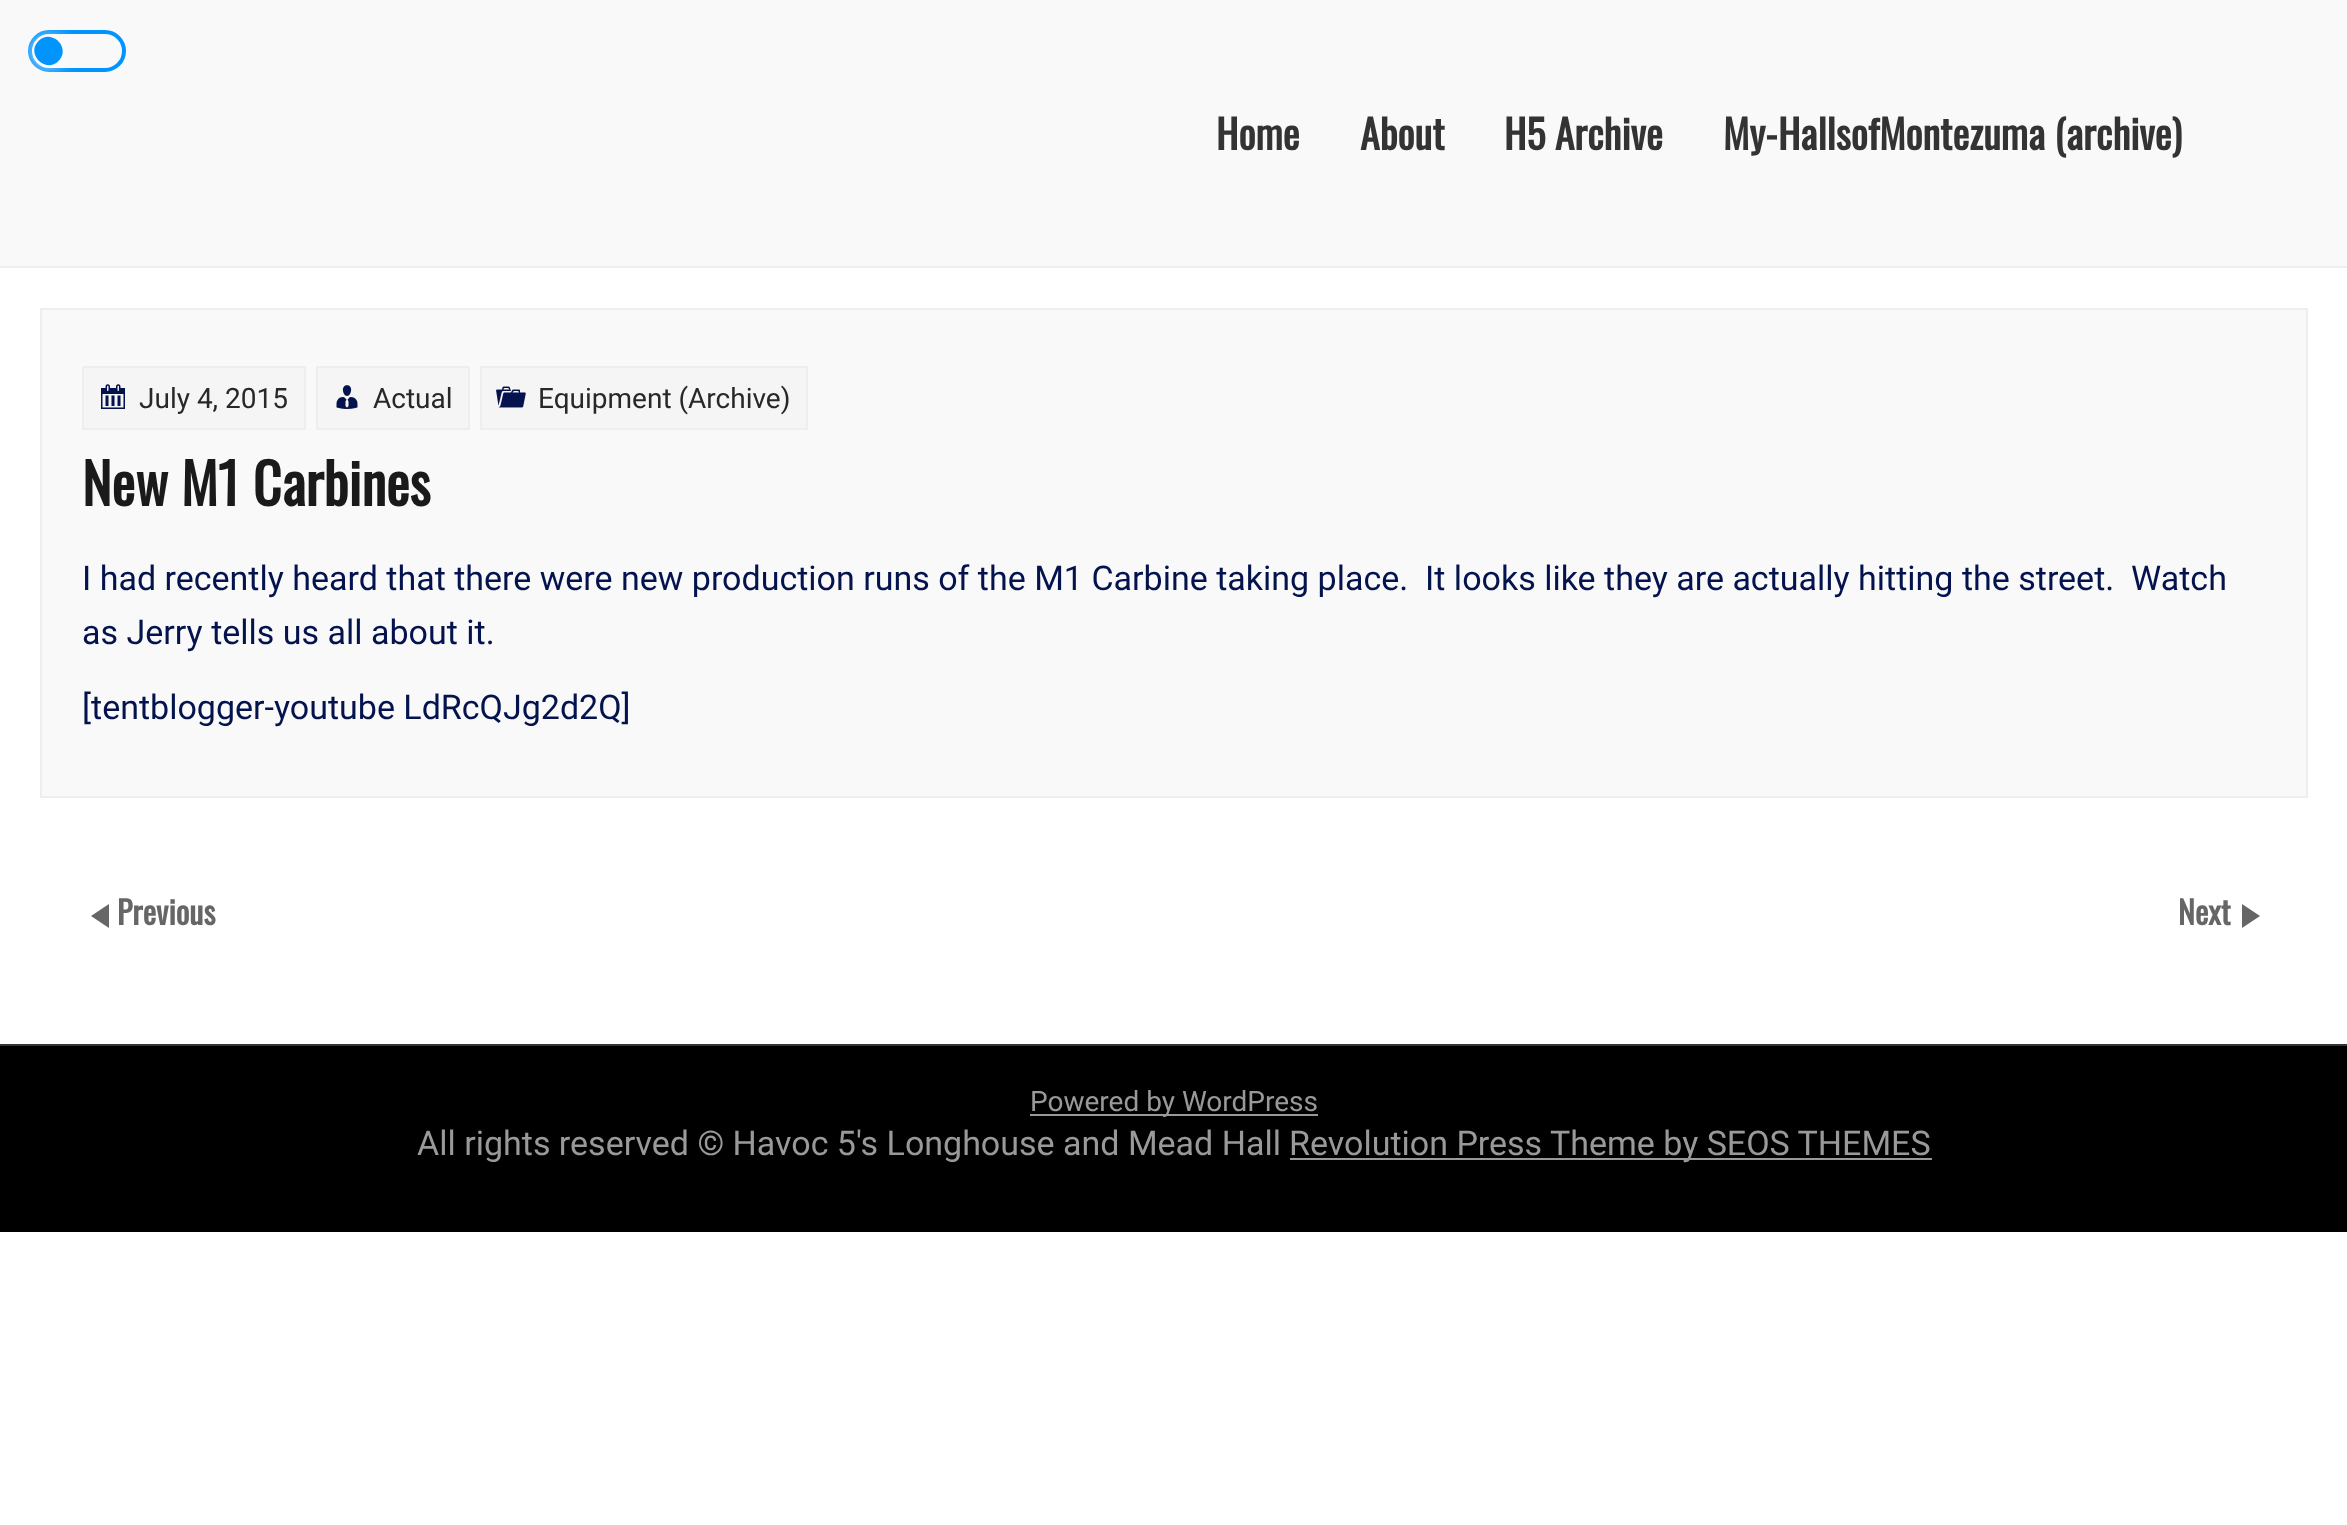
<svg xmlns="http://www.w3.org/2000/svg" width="2347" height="1525">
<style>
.a{font:bold 40px Oswald;fill:#333}
.b{font:28px Roboto;fill:#282828}
.c{font:bold 56px Oswald;fill:#1a1a1a}
.d{font:34px Roboto;fill:#04134e}
.e{font:bold 32px Oswald;fill:#666}
.f{font:28px Roboto;fill:#999}
.g{font:34px Roboto;fill:#999}
</style>
<rect width="100%" height="100%" fill="#fff"/>
<path fill="#f9f9f9" d="M0 0h2347v266H0z"/>
<rect fill="none" stroke="#0094ff" stroke-width="4" x="30" y="32" width="94" height="38" rx="19"/>
<rect fill="#fff" filter="blur(9px)" x="34" y="38" width="28" height="28" rx="14"/>
<path fill="#0094ff" d="M38.5 41c13-13 33 7 20 20c-13 13-33-7-20-20z"/>
<path fill="#eee" d="M0 266h2347v2H0z"/>
<path fill="#f9f9f9" stroke="#eee" stroke-width="2" d="M41 309h2266v488H41z"/>
<path fill="#f5f5f5" stroke="#eee" stroke-width="2" d="M83 367h222v62H83z"/>
<image href="1.png" x="101" y="384" width="24" height="25"/>
<path fill="#f5f5f5" stroke="#eee" stroke-width="2" d="M317 367h152v62H317z"/>
<image href="2.png" x="336" y="385" width="22" height="24"/>
<path fill="#f5f5f5" stroke="#eee" stroke-width="2" d="M481 367h326v62H481z"/>
<image href="3.png" x="496" y="386" width="30" height="22"/>
<path fill="#666" d="M109 928l-18-12l18-12z"/>
<path fill="#666" d="M2242 904l18 12l-18 12z"/>
<path fill="#333" d="M0 1044h2347v2H0z"/>
<path fill="#000" d="M0 1046h2347v186H0z"/>
<path fill="#999" d="M1030 1114h288v2H1030z"/>
<path fill="#999" d="M1290 1158h642v2H1290z"/>
<text class="a" x="1216" y="150">Home</text>
<text class="a" x="1360" y="150">About</text>
<text class="a" x="1504" y="150">H5 Archive</text>
<text class="a" x="1723" y="150">My-HallsofMontezuma (archive)</text>
<text class="b" x="139" y="408">July 4, 2015</text>
<text class="b" x="373" y="408">Actual</text>
<text class="b" x="538" y="408">Equipment (Archive)</text>
<text class="c" x="82" y="506">New M1 Carbines</text>
<text class="d" xml:space="preserve" x="82" y="590">I had recently heard that there were new production runs of the M1 Carbine taking place.  It looks like they are actually hitting the street.  Watch</text>
<text class="d" x="82" y="644">as Jerry tells us all about it.</text>
<text class="d" x="82" y="719">[tentblogger-youtube LdRcQJg2d2Q]</text>
<text class="e" x="117" y="925">Previous</text>
<text class="e" x="2178" y="925">Next</text>
<text class="f" x="1030" y="1111">Powered by WordPress</text>
<text class="g" x="417" y="1155">All rights reserved © Havoc 5's Longhouse and Mead Hall</text>
<text class="g" x="1289" y="1155">Revolution Press Theme by SEOS THEMES</text>
</svg>
